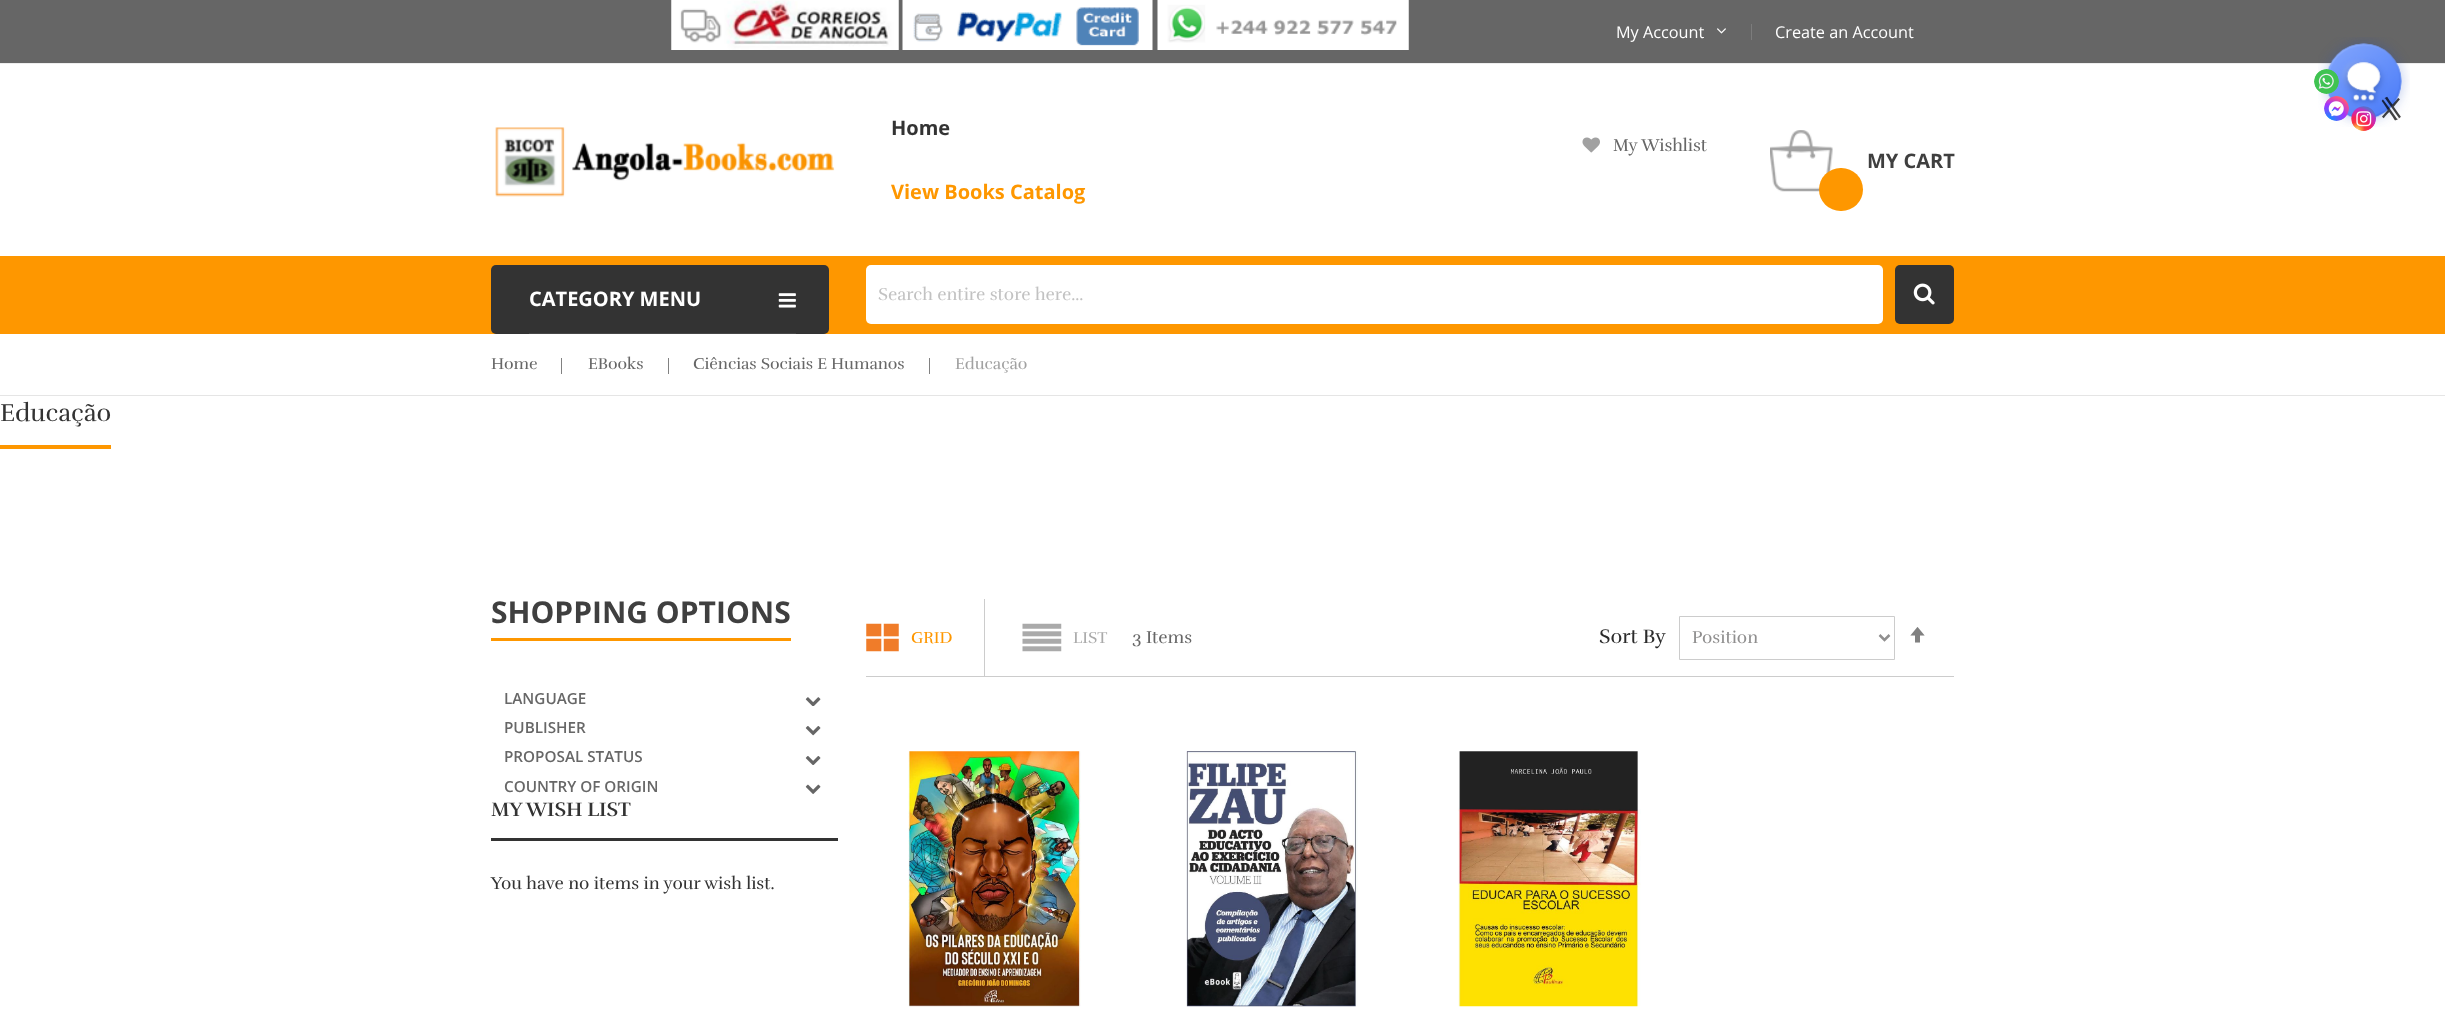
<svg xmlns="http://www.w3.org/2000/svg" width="2445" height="1012">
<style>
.a{font:16.25px Open Sans;fill:#fff}
.b{font:bold 20px Open Sans;fill:#333}
.c{font:bold 20px Open Sans;fill:#fe9700}
.d{font:17.5px Rufina;fill:#676767}
.e{font:bold 20px Open Sans;fill:#3f3f3f}
.f{font:bold 20px Open Sans;fill:#fff}
.g{font:17.5px Rufina;fill:#c2c2c2}
.h{font:16.25px Rufina;fill:#676767}
.i{font:16.25px Rufina;fill:#a1a1a1}
.j{font:25px Rufina;fill:#333}
.k{font:bold 30px Open Sans;fill:#3f3f3f}
.l{font:600 15.25px Open Sans;fill:#676767}
.m{font:16.25px Rufina;fill:#fe9700}
.n{font:16.25px Rufina;fill:#aaa}
.o{font:20px Rufina;fill:#2b2b2b}
.p{font:17.5px Rufina;fill:#908f8f}
.q{font:bold 20px Rufina;fill:#333}
.r{font:17.5px Rufina;fill:#333}
</style>
<rect width="100%" height="100%" fill="#fff"/>
<path fill="#666" d="M0 0h2445v63H0z"/>
<path fill="#ededed" d="M0 63h2445v1H0z"/>
<image href="1.png" x="671" y="0" width="228" height="50"/>
<image href="2.png" x="902" y="0" width="251" height="50"/>
<image href="3.png" x="1157" y="0" width="252" height="50"/>
<image href="4.png" x="1717" y="28" width="9" height="6"/>
<path fill="#7c7c7c" d="M1751 24h1v16H1751z"/>
<image href="5.png" x="495" y="127" width="340" height="70"/>
<image href="6.png" x="1582" y="137" width="18" height="16"/>
<image href="7.png" x="1770" y="130" width="63" height="62"/>
<rect fill="#fe9700" x="1819" y="168" width="44" height="43" rx="21.5"/>
<path fill="#fe9700" d="M0 256h2445v78H0z"/>
<rect fill="#333" x="491" y="265" width="338" height="69" rx="5"/>
<path fill="#474747" d="M529 333h267v1H529z"/>
<image href="8.png" x="778" y="293" width="18" height="15"/>
<rect fill="#fff" x="866" y="265" width="1017" height="59" rx="5"/>
<rect fill="#333" x="1895" y="265" width="59" height="59" rx="5"/>
<image href="9.png" x="1913" y="283" width="22" height="22"/>
<path fill="#e5e5e5" d="M0 395h2445v1H0z"/>
<path fill="#818181" d="M561 358h1v16H561z"/>
<path fill="#818181" d="M668 358h1v16H668z"/>
<path fill="#818181" d="M929 358h1v16H929z"/>
<path fill="#fe9700" d="M0 445h111v4H0z"/>
<image href="10.png" x="2318" y="37" width="92" height="90"/>
<image href="11.png" x="2314" y="69" width="25" height="25"/>
<image href="12.png" x="2324" y="96" width="25" height="25"/>
<image href="13.png" x="2351" y="106" width="25" height="25"/>
<image href="14.png" x="2381" y="96" width="20" height="25"/>
<path fill="#fe9700" d="M491 638h300v3H491z"/>
<image href="15.png" x="805" y="697" width="16" height="9"/>
<image href="16.png" x="805" y="726" width="16" height="10"/>
<image href="17.png" x="805" y="756" width="16" height="9"/>
<image href="18.png" x="805" y="784" width="16" height="10"/>
<path fill="#ccc" d="M866 676h1088v1H866z"/>
<image href="19.png" x="866" y="623" width="33" height="29"/>
<path fill="#ccc" d="M984 599h1v77H984z"/>
<image href="20.png" x="1022" y="623" width="40" height="29"/>
<path fill="none" stroke="#ccc" d="M1679.5 616.5h215v43H1679.5z"/>
<path fill="none" stroke="#908f8f" stroke-width="2.5" d="M1879.5 635l5 5l5-5"/>
<image href="21.png" x="1910" y="627" width="15" height="16"/>
<image href="22.png" x="908" y="751" width="173" height="256"/>
<image href="23.png" x="1186" y="751" width="172" height="256"/>
<image href="24.png" x="1458" y="751" width="183" height="256"/>
<path fill="#333" d="M491 838h347v3H491z"/>
<text class="a" x="1616" y="38">My Account</text>
<text class="a" x="1775" y="38">Create an Account</text>
<text class="b" x="891" y="135">Home</text>
<text class="c" x="891" y="199">View Books Catalog</text>
<text class="d" x="1613" y="151">My Wishlist</text>
<text class="e" x="1867" y="168">MY CART</text>
<text class="f" x="529" y="306">CATEGORY MENU</text>
<text class="g" x="878" y="300">Search entire store here...</text>
<text class="h" x="491" y="369">Home</text>
<text class="h" x="588" y="369">EBooks</text>
<text class="h" x="693" y="369">Ciências Sociais E Humanos</text>
<text class="i" x="955" y="369">Educação</text>
<text class="j" x="0" y="421">Educação</text>
<text class="k" x="491" y="623">SHOPPING OPTIONS</text>
<text class="l" x="504" y="704">LANGUAGE</text>
<text class="l" x="504" y="733">PUBLISHER</text>
<text class="l" x="504" y="762">PROPOSAL STATUS</text>
<text class="l" x="504" y="792">COUNTRY OF ORIGIN</text>
<text class="m" x="911" y="643">GRID</text>
<text class="n" x="1073" y="643">LIST</text>
<text class="d" x="1132" y="643">3 Items</text>
<text class="o" x="1599" y="643">Sort By</text>
<text class="p" x="1692" y="643">Position</text>
<text class="q" x="491" y="816">MY WISH LIST</text>
<text class="r" x="491" y="889">You have no items in your wish list.</text>
</svg>
